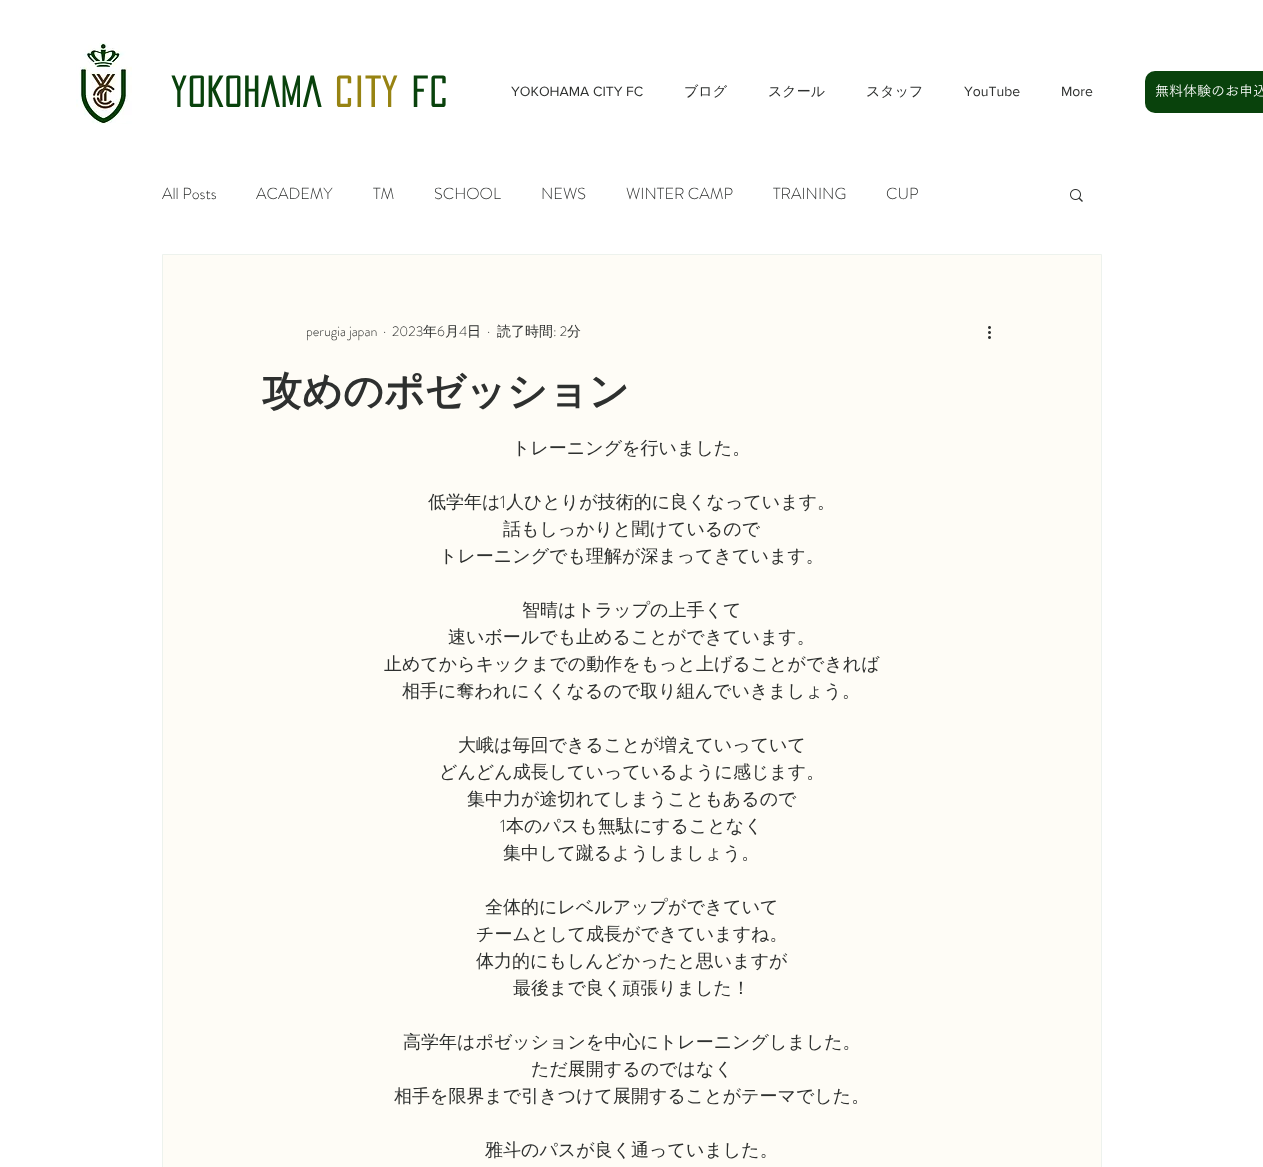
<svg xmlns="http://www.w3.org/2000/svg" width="1263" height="1167">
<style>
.a{font:bold 38px 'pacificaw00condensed';letter-spacing:2px;fill:#09420c}
.b{font:bold 38px 'pacificaw00condensed';letter-spacing:2px;fill:#978312}
.c{font:14px 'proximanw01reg';fill:#2e302f}
.d{font:500 14px WenQuanYi Zen Hei;fill:#2e302f}
.e{font:14px 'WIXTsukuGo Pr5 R';fill:#fff}
.f{font:300 16px 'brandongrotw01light';fill:#2e302f}
.g{font:300 14px 'brandongrotw01light';fill:#2e302f}
.h{font:bold 40px WenQuanYi Zen Hei;fill:#2e302f}
.i{font:500 18px WenQuanYi Zen Hei;fill:#2e302f}
.j{font:300 18px 'brandongrotw01light';fill:#2e302f}
</style>
<rect width="100%" height="100%" fill="#fff"/>
<image href="1.png" x="76" y="43" width="56" height="81"/>
<rect fill="#09420c" x="1145" y="71" width="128" height="42" rx="10"/>
<image href="2.png" x="1070" y="189" width="13" height="13"/>
<path fill="#fefcf6" stroke="#edf2ed" d="M162.5 254.5h939v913H162.5z"/>
<image href="3.png" x="988" y="326" width="3" height="13"/>
<text class="a" x="171" y="107">YOKOHAMA</text>
<text class="b" x="335" y="107">CITY</text>
<text class="a" x="412" y="107">FC</text>
<text class="c" x="511" y="96">YOKOHAMA CITY FC</text>
<text class="d" x="684" y="96">ブログ</text>
<text class="d" x="768" y="96">スクール</text>
<text class="d" x="866" y="96">スタッフ</text>
<text class="c" x="964" y="96">YouTube</text>
<text class="c" x="1061" y="96">More</text>
<text class="e" x="1155" y="96">無料体験のお申込</text>
<text class="f" x="162" y="199">All Posts</text>
<text class="f" x="256" y="199">ACADEMY</text>
<text class="f" x="373" y="199">TM</text>
<text class="f" x="434" y="199">SCHOOL</text>
<text class="f" x="541" y="199">NEWS</text>
<text class="f" x="626" y="199">WINTER CAMP</text>
<text class="f" x="773" y="199">TRAINING</text>
<text class="f" x="886" y="199">CUP</text>
<text class="g" x="306" y="336">perugia japan</text>
<text class="g" x="383" y="336">·</text>
<text class="g" x="392" y="336">2023</text>
<text class="d" x="423" y="336">年</text>
<text class="g" x="437" y="336">6</text>
<text class="d" x="445" y="336">月</text>
<text class="g" x="459" y="336">4</text>
<text class="d" x="467" y="336">日</text>
<text class="g" x="487" y="336">·</text>
<text class="d" x="497" y="336">読了時間</text>
<text class="g" x="553" y="336">: 2</text>
<text class="d" x="567" y="336">分</text>
<text class="h" x="262" y="405">攻めのポゼッション</text>
<text class="i" x="512" y="454">トレーニングを行いました。</text>
<text class="i" x="428" y="508">低学年は</text>
<text class="j" x="500" y="508">1</text>
<text class="i" x="506" y="508">人ひとりが技術的に良くなっています。</text>
<text class="i" x="503" y="535">話もしっかりと聞けているので</text>
<text class="i" x="439" y="562">トレーニングでも理解が深まってきています。</text>
<text class="i" x="522" y="616">智晴はトラップの上手くて</text>
<text class="i" x="448" y="643">速いボールでも止めることができています。</text>
<text class="i" x="384" y="670">止めてからキックまでの動作をもっと上げることができれば</text>
<text class="i" x="402" y="697">相手に奪われにくくなるので取り組んでいきましょう。</text>
<text class="i" x="458" y="751">大峨は毎回できることが増えていっていて</text>
<text class="i" x="439" y="778">どんどん成長していっているように感じます。</text>
<text class="i" x="467" y="805">集中力が途切れてしまうこともあるので</text>
<text class="j" x="500" y="832">1</text>
<text class="i" x="506" y="832">本のパスも無駄にすることなく</text>
<text class="i" x="503" y="859">集中して蹴るようしましょう。</text>
<text class="i" x="485" y="913">全体的にレベルアップができていて</text>
<text class="i" x="476" y="940">チームとして成長ができていますね。</text>
<text class="i" x="476" y="967">体力的にもしんどかったと思いますが</text>
<text class="i" x="513" y="994">最後まで良く頑張りました！</text>
<text class="i" x="403" y="1048">高学年はポゼッションを中心にトレーニングしました。</text>
<text class="i" x="531" y="1075">ただ展開するのではなく</text>
<text class="i" x="394" y="1102">相手を限界まで引きつけて展開することがテーマでした。</text>
<text class="i" x="485" y="1156">雅斗のパスが良く通っていました。</text>
</svg>
